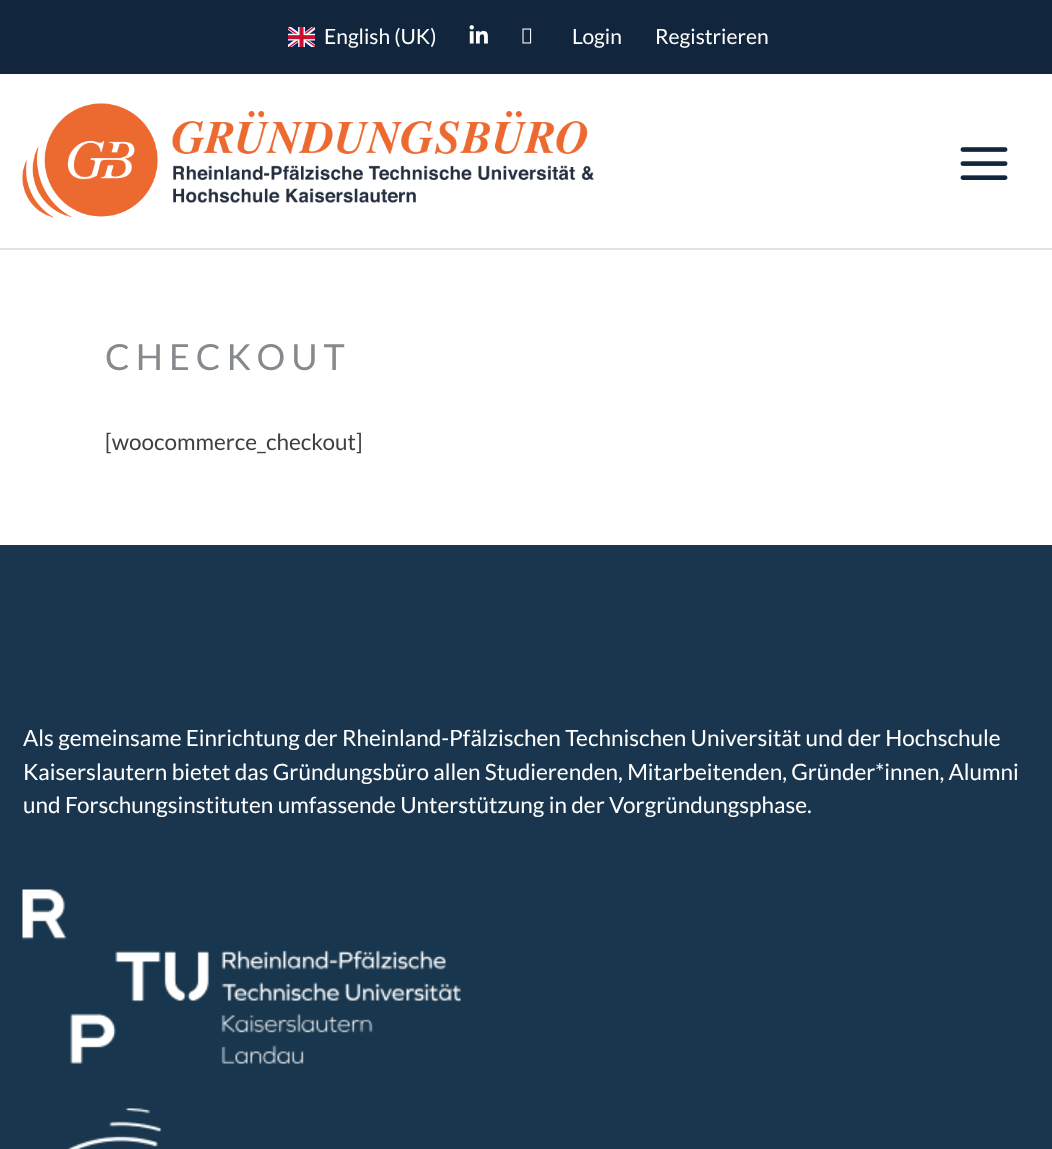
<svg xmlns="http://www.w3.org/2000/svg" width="1052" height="1149">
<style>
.a{font:21px Lato;fill:#fff}
.b{font:36px Lato;letter-spacing:6px;fill:#86898d}
.c{font:22.5px Lato;fill:#404040}
.d{font:22.5px Lato;fill:#fff}
</style>
<rect width="100%" height="100%" fill="#fff"/>
<path fill="#11253c" d="M0 0h1052v74H0z"/>
<image href="1.png" x="288" y="27" width="27" height="20"/>
<image href="2.png" x="469" y="25" width="19" height="19"/>
<image href="3.png" x="522" y="28" width="10" height="16"/>
<path fill="#e2e2e2" d="M0 248h1052v2H0z"/>
<image href="4.png" x="22" y="103" width="136" height="115"/>
<image href="5.png" x="172" y="111" width="422" height="92"/>
<image href="6.png" x="960" y="147" width="48" height="33"/>
<path fill="#1a364e" d="M0 545h1052v604H0z"/>
<image href="7.png" x="22" y="889" width="439" height="175"/>
<image href="8.png" x="67" y="1108" width="95" height="41"/>
<text class="a" x="324" y="44">English (UK)</text>
<text class="a" x="572" y="44">Login</text>
<text class="a" x="655" y="44">Registrieren</text>
<text class="b" x="105" y="370">CHECKOUT</text>
<text class="c" x="105" y="450">[woocommerce_checkout]</text>
<text class="d" x="23" y="746">Als gemeinsame Einrichtung der Rheinland-Pfälzischen Technischen Universität und der Hochschule</text>
<text class="d" x="23" y="780">Kaiserslautern bietet das Gründungsbüro allen Studierenden, Mitarbeitenden, Gründer*innen, Alumni</text>
<text class="d" x="23" y="813">und Forschungsinstituten umfassende Unterstützung in der Vorgründungsphase.</text>
</svg>
